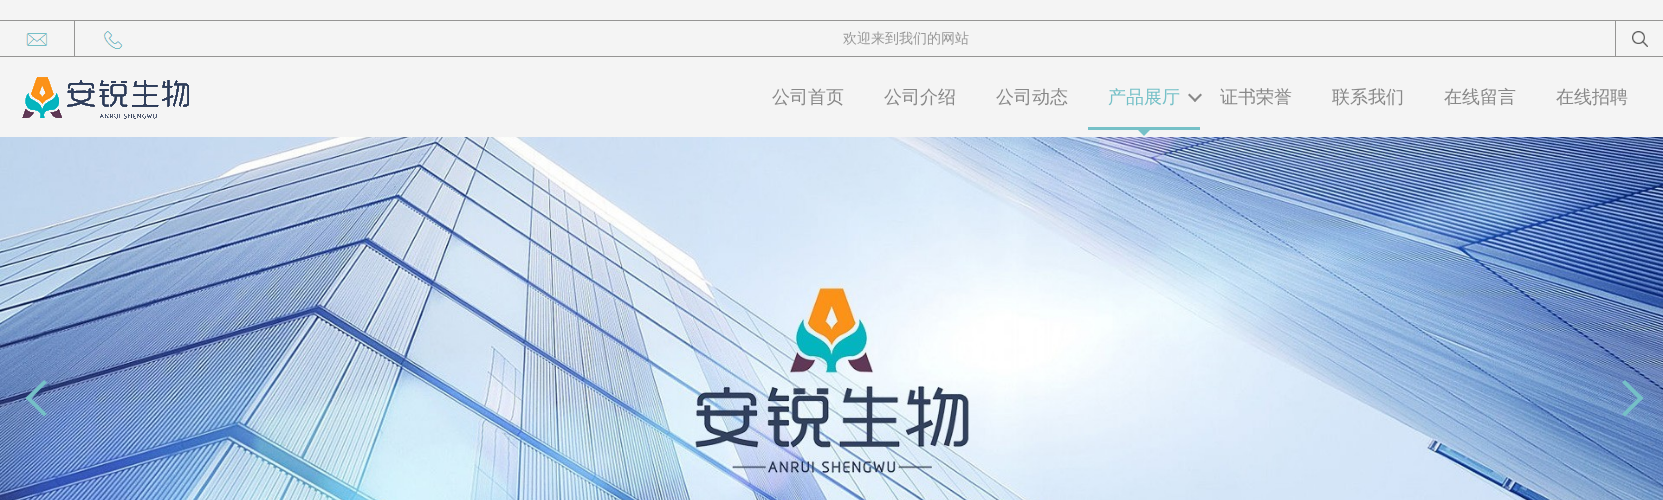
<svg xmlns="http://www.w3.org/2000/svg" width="1663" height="500">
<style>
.a{font:500 14px WenQuanYi Zen Hei;fill:#999}
.b{font:500 18px WenQuanYi Zen Hei;fill:#888}
.c{font:500 18px WenQuanYi Zen Hei;fill:#75c0c7}
</style>
<rect width="100%" height="100%" fill="#f4f4f4"/>
<path fill="#969594" d="M0 20h1663v1H0z"/>
<path fill="#969594" d="M0 56h1663v1H0z"/>
<path fill="#969594" d="M74 21h1v35H74z"/>
<image href="1.png" x="26" y="33" width="22" height="13"/>
<image href="2.png" x="103" y="31" width="20" height="18"/>
<image href="3.png" x="1632" y="31" width="16" height="16"/>
<path fill="#969594" d="M1615 21h1v35H1615z"/>
<image href="4.png" x="22" y="77" width="167" height="42"/>
<path fill="#75c0c7" d="M1088 127h112v3H1088z"/>
<path fill="#75c0c7" d="M1138 130h12l-6 6z"/>
<path fill="#888" d="M1202 95l-7 7l-1.5-1.5l7-7z"/>
<path fill="#888" d="M1196.5 100.5l-1.5 1.5l-7-7l1.5-1.5z"/>
<image href="5.png" x="0" y="137" width="1663" height="363"/>
<path fill="#75c0c7" d="M44 416.5l-18.5-18.5l3-2.5l18.5 18.5z"/>
<path fill="#75c0c7" d="M28.5 401l-3-3l18.5-18l3 2.5z"/>
<path fill="#75c0c7" d="M1625 380l18.5 18l-3 3l-18.5-18.5z"/>
<path fill="#75c0c7" d="M1640.5 395.5l3 2.5l-18.5 18.5l-3-2.5z"/>
<text class="a" x="843" y="43">欢迎来到我们的网站</text>
<text class="b" x="772" y="103">公司首页</text>
<text class="b" x="884" y="103">公司介绍</text>
<text class="b" x="996" y="103">公司动态</text>
<text class="c" x="1108" y="103">产品展厅</text>
<text class="b" x="1220" y="103">证书荣誉</text>
<text class="b" x="1332" y="103">联系我们</text>
<text class="b" x="1444" y="103">在线留言</text>
<text class="b" x="1556" y="103">在线招聘</text>
</svg>
